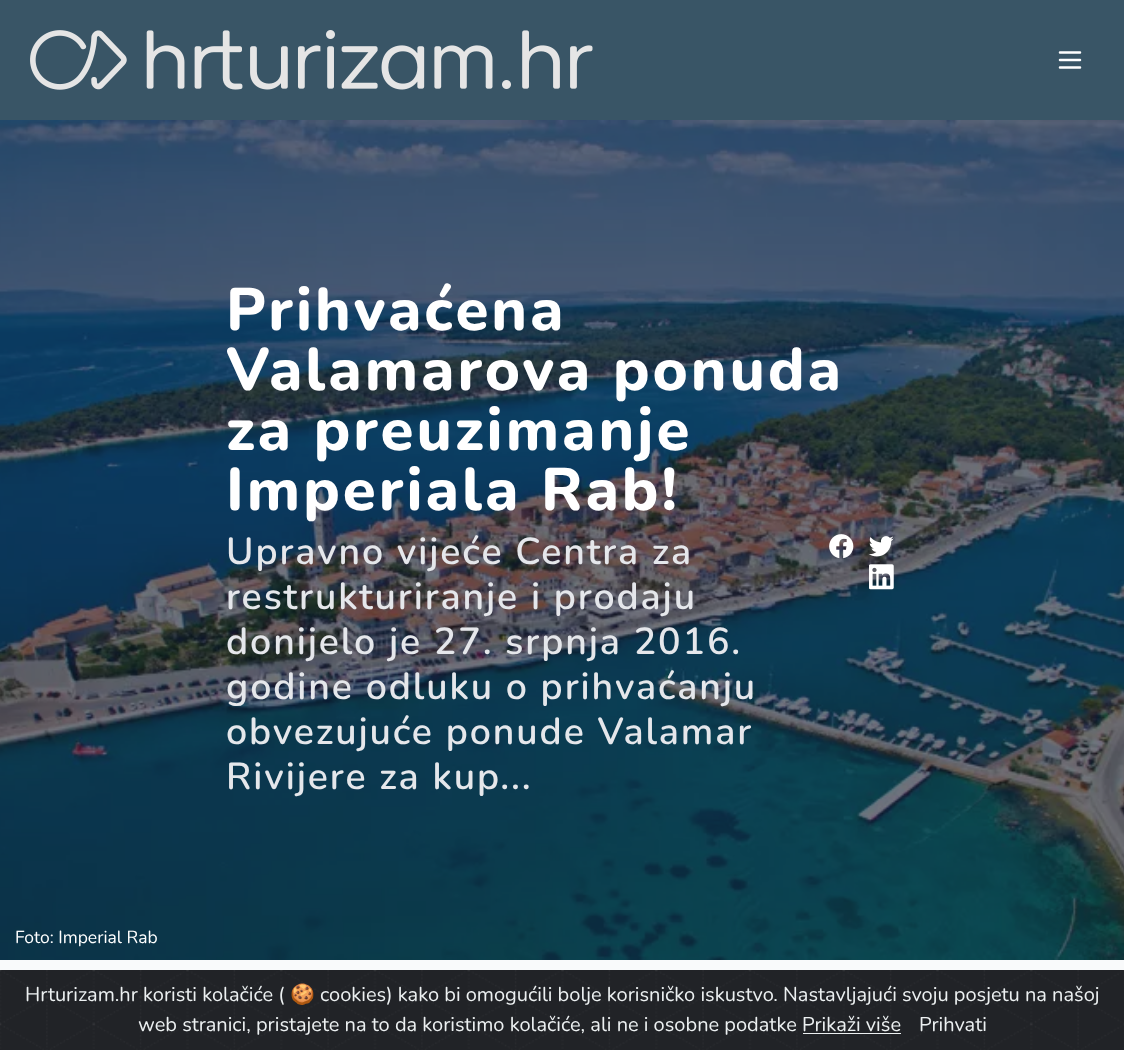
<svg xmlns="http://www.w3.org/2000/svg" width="1124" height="1050">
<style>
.a{font:800 60px Nunito;letter-spacing:3px;fill:#fff}
.b{font:600 37.5px Nunito;letter-spacing:1.9px;fill:#e5e7eb}
.c{font:17.5px Nunito;fill:#fff}
.d{font:20px Nunito;fill:#ecf0f1}
.e{font:20px Noto Color Emoji;fill:#ecf0f1}
</style>
<rect width="100%" height="100%" fill="#f9fafb"/>
<path fill="#395566" d="M0 0h1124v120H0z"/>
<image href="1.png" x="30" y="30" width="563" height="60"/>
<path fill="none" stroke="#fff" stroke-width="2.5" stroke-linecap="round" stroke-linejoin="round" d="M1060 52.5h20m-20 7.5h20m-20 7.5h20"/>
<image href="2.png" x="0" y="120" width="1124" height="840"/>
<image href="3.png" x="829" y="534" width="25" height="25"/>
<image href="4.png" x="869" y="536" width="25" height="21"/>
<image href="5.png" x="869" y="564" width="25" height="26"/>
<image href="6.png" x="0" y="970" width="1124" height="80"/>
<path fill="#ecf0f1" d="M803 1033h98v1H803z"/>
<text class="a" x="226" y="330">Prihvaćena</text>
<text class="a" x="226" y="390">Valamarova ponuda</text>
<text class="a" x="226" y="450">za preuzimanje</text>
<text class="a" x="226" y="510">Imperiala Rab!</text>
<text class="b" x="226" y="564">Upravno vijeće Centra za</text>
<text class="b" x="226" y="609">restrukturiranje i prodaju</text>
<text class="b" x="226" y="654">donijelo je 27. srpnja 2016.</text>
<text class="b" x="226" y="699">godine odluku o prihvaćanju</text>
<text class="b" x="226" y="744">obvezujuće ponude Valamar</text>
<text class="b" x="226" y="789">Rivijere za kup...</text>
<text class="c" x="15" y="943">Foto: Imperial Rab</text>
<text class="d" x="25" y="1001">Hrturizam.hr koristi kolačiće (</text>
<text class="e" x="290" y="1001">🍪</text>
<text class="d" x="320" y="1001">cookies) kako bi omogućili bolje korisničko iskustvo. Nastavljajući svoju posjetu na našoj</text>
<text class="d" x="138" y="1031">web stranici, pristajete na to da koristimo kolačiće, ali ne i osobne podatke Prikaži više</text>
<text class="d" x="919" y="1031">Prihvati</text>
</svg>
